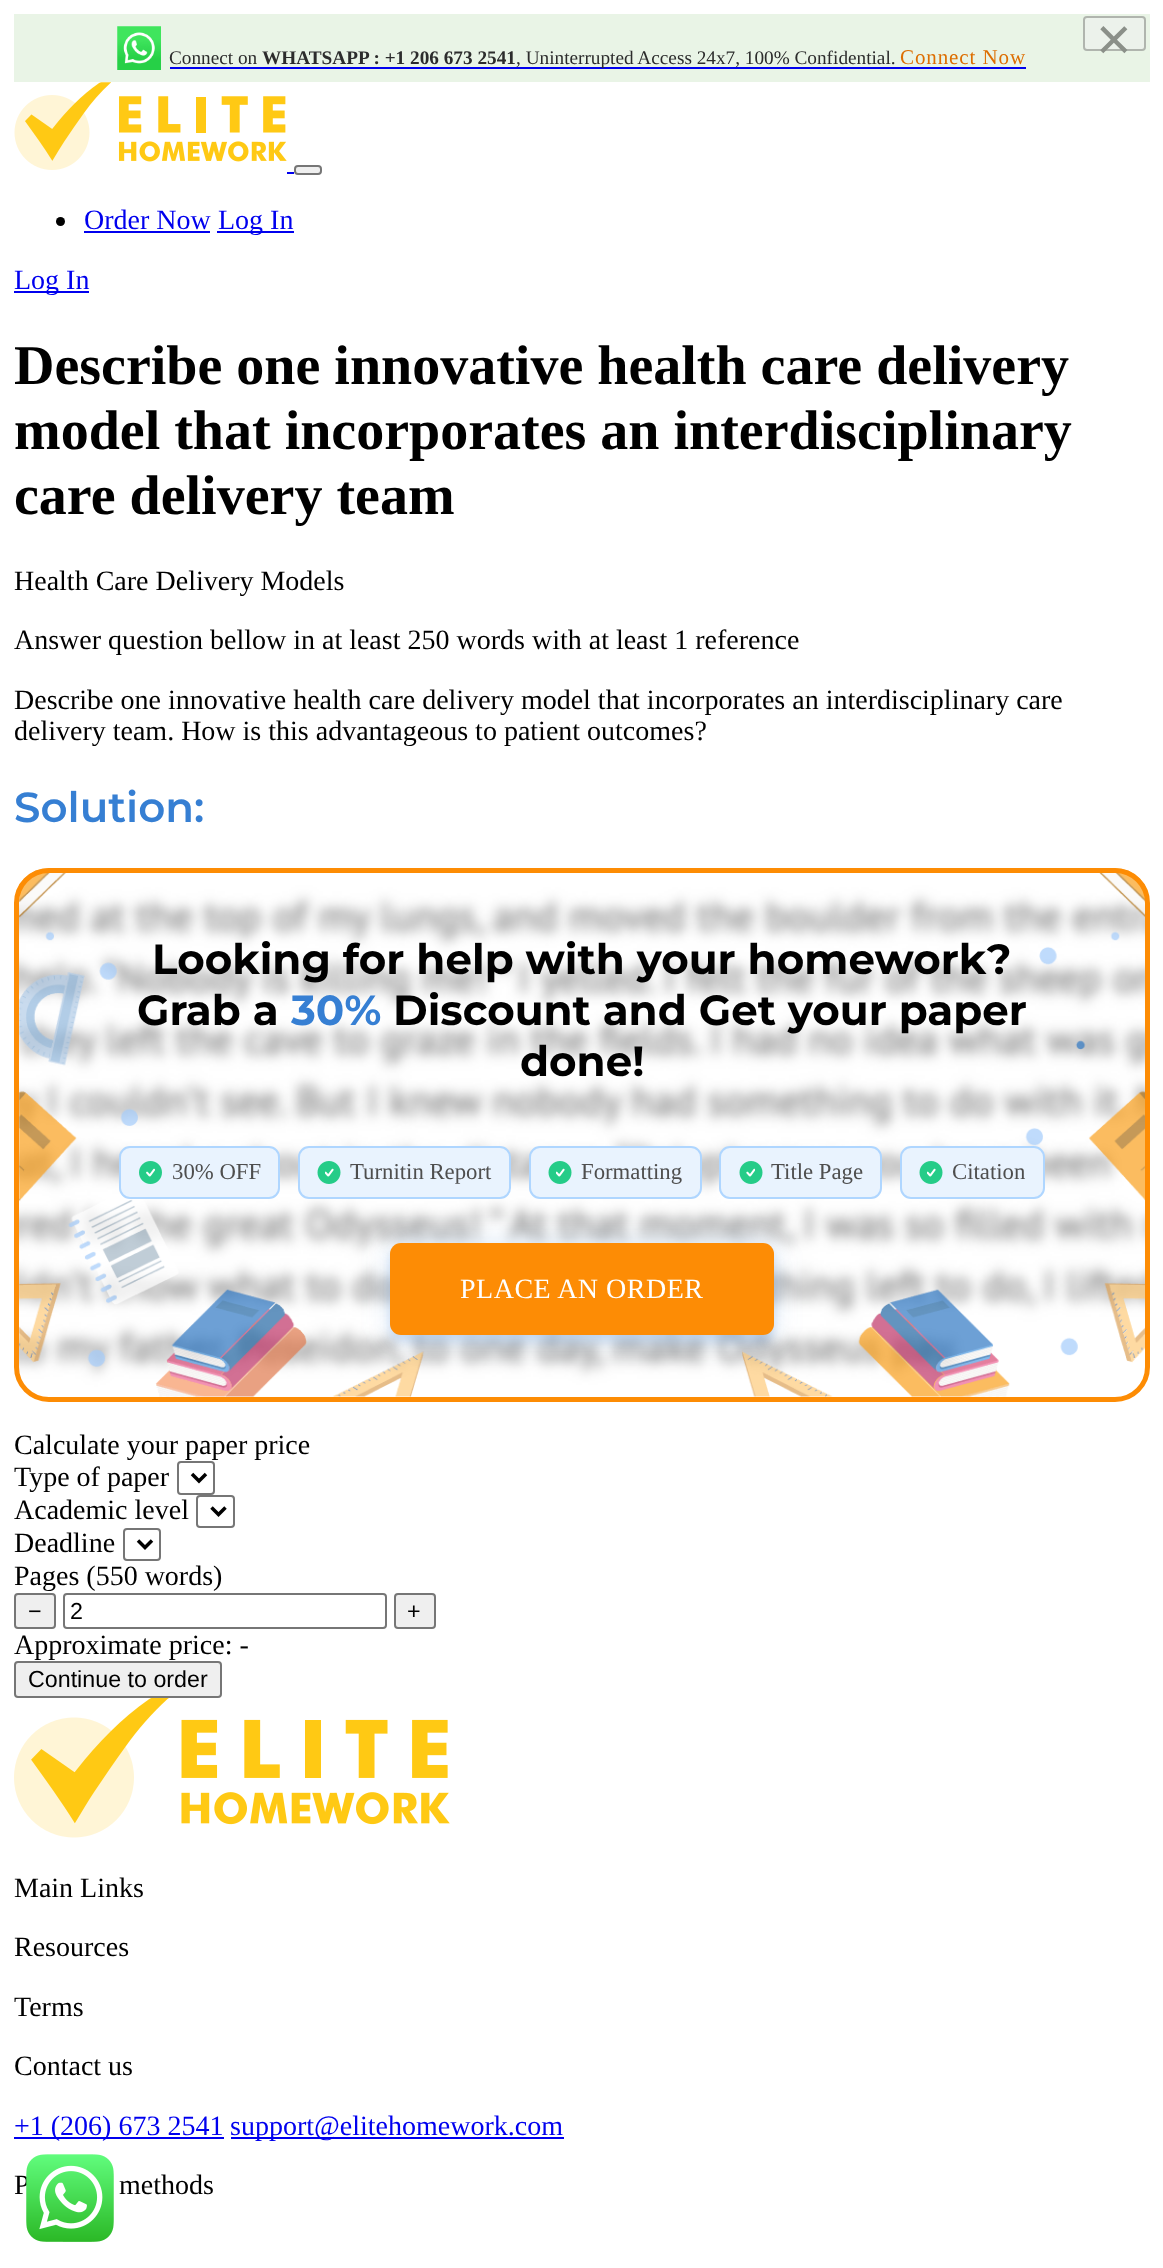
<svg xmlns="http://www.w3.org/2000/svg" width="1163" height="2268">
<style>
.a{font:61px Liberation Sans;fill:#8b9089}
.b{font:19.25px Liberation Serif;fill:#2c2c2c}
.c{font:bold 19.25px Liberation Serif;fill:#2c2c2c}
.d{font:21px Liberation Serif;letter-spacing:0.9px;fill:#dd6e02}
.e{font:28px Liberation Serif;fill:#00e}
.f{font:bold 56px Liberation Serif;fill:#000}
.g{font:28px Liberation Serif;fill:#000}
.h{font:600 42px Montserrat;fill:#367fd3}
.i{font:bold 42px Montserrat;fill:#000}
.j{font:bold 42px Montserrat;fill:#367fd3}
.k{font:22.75px Liberation Serif;fill:#4e4e4e}
.l{font:28px Liberation Serif;letter-spacing:0.5px;fill:#fff}
.m{font:23.25px Liberation Sans;fill:#000}
</style>
<rect width="100%" height="100%" fill="#fff"/>
<path fill="#e9f4e6" d="M14 14h1136v68H14z"/>
<rect fill="#ecf2eb" stroke="#b0b5ae" stroke-width="2" x="1084" y="17" width="61" height="33" rx="3"/>
<image href="1.png" x="117" y="26" width="44" height="44"/>
<path fill="#00e" d="M170 67h856v2H170z"/>
<image href="2.png" x="14" y="82" width="273" height="88"/>
<path fill="#00e" d="M287 172h7v2H287z"/>
<rect fill="#efefef" stroke="#767676" stroke-width="2" x="295" y="166" width="26" height="8" rx="3"/>
<circle fill="#000" cx="60.5" cy="221.5" r="4.5"/>
<path fill="#00e" d="M84 231h126v2H84z"/>
<path fill="#00e" d="M217 231h77v2H217z"/>
<path fill="#00e" d="M14 291h75v2H14z"/>
<image href="3.png" x="14" y="868" width="1136" height="529"/>
<rect fill="none" stroke="#fd8c04" stroke-width="5" x="16.5" y="870.5" width="1131" height="529" rx="32.5"/>
<rect fill="#e9f3fe" stroke="#afd6ff" stroke-width="2" x="120" y="1147" width="159" height="51" rx="10"/>
<image href="4.png" x="139" y="1161" width="23" height="23"/>
<rect fill="#e9f3fe" stroke="#afd6ff" stroke-width="2" x="299" y="1147" width="211" height="51" rx="10"/>
<image href="5.png" x="317" y="1161" width="24" height="23"/>
<rect fill="#e9f3fe" stroke="#afd6ff" stroke-width="2" x="530" y="1147" width="171" height="51" rx="10"/>
<image href="5.png" x="548" y="1161" width="24" height="23"/>
<rect fill="#e9f3fe" stroke="#afd6ff" stroke-width="2" x="720" y="1147" width="161" height="51" rx="10"/>
<image href="6.png" x="739" y="1161" width="24" height="23"/>
<rect fill="#e9f3fe" stroke="#afd6ff" stroke-width="2" x="901" y="1147" width="143" height="51" rx="10"/>
<image href="5.png" x="919" y="1161" width="24" height="23"/>
<rect fill="#367fd32e" filter="blur(14px)" x="390" y="1244" width="384" height="93" rx="11"/>
<rect fill="#367fd333" filter="blur(5px)" x="390" y="1250" width="384" height="92" rx="11"/>
<rect fill="#fd8c05" x="390" y="1243" width="384" height="92" rx="11"/>
<rect fill="none" stroke="#767676" stroke-width="2" x="178" y="1462" width="36" height="32" rx="3"/>
<path fill="none" stroke="#000" stroke-width="3.5" d="M192 1474l7 7l7-7"/>
<rect fill="none" stroke="#767676" stroke-width="2" x="197" y="1496" width="37" height="31" rx="3"/>
<path fill="none" stroke="#000" stroke-width="3.5" d="M211.5 1507.5l7 7l7-7"/>
<rect fill="none" stroke="#767676" stroke-width="2" x="124" y="1529" width="36" height="31" rx="3"/>
<path fill="none" stroke="#000" stroke-width="3.5" d="M138 1540.5l7 7l7-7"/>
<rect fill="#efefef" stroke="#767676" stroke-width="2" x="15" y="1594" width="40" height="34" rx="3"/>
<rect fill="none" stroke="#767676" stroke-width="2" x="64" y="1594" width="322" height="34" rx="3"/>
<rect fill="#efefef" stroke="#767676" stroke-width="2" x="395" y="1594" width="40" height="34" rx="3"/>
<rect fill="#efefef" stroke="#767676" stroke-width="2" x="15" y="1662" width="206" height="35" rx="3"/>
<image href="7.png" x="14" y="1698" width="436" height="140"/>
<path fill="#00e" d="M14 2137h210v2H14z"/>
<path fill="#00e" d="M231 2137h333v2H231z"/>
<text class="a" x="1096" y="60">×</text>
<text class="b" x="169" y="64">Connect on</text>
<text class="c" x="262" y="64">WHATSAPP : +1 206 673 2541</text>
<text class="b" x="516" y="64">, Uninterrupted Access 24x7, 100% Confidential.</text>
<text class="d" x="900" y="64">Connect Now</text>
<text class="e" x="84" y="229">Order Now</text>
<text class="e" x="218" y="229">Log In</text>
<text class="e" x="14" y="289">Log In</text>
<text class="f" x="14" y="384">Describe one innovative health care delivery</text>
<text class="f" x="14" y="449">model that incorporates an interdisciplinary</text>
<text class="f" x="14" y="514">care delivery team</text>
<text class="g" x="14" y="590">Health Care Delivery Models</text>
<text class="g" x="14" y="649">Answer question bellow in at least 250 words with at least 1 reference</text>
<text class="g" x="14" y="709">Describe one innovative health care delivery model that incorporates an interdisciplinary care</text>
<text class="g" x="14" y="740">delivery team. How is this advantageous to patient outcomes?</text>
<text class="h" x="14" y="822">Solution:</text>
<text class="i" x="152" y="974">Looking for help with your homework?</text>
<text class="i" x="137" y="1025">Grab a</text>
<text class="j" x="291" y="1025">30%</text>
<text class="i" x="393" y="1025">Discount and Get your paper</text>
<text class="i" x="520" y="1076">done!</text>
<text class="k" x="172" y="1179">30% OFF</text>
<text class="k" x="350" y="1179">Turnitin Report</text>
<text class="k" x="581" y="1179">Formatting</text>
<text class="k" x="771" y="1179">Title Page</text>
<text class="k" x="952" y="1179">Citation</text>
<text class="l" x="460" y="1298">PLACE AN ORDER</text>
<text class="g" x="14" y="1454">Calculate your paper price</text>
<text class="g" x="14" y="1486">Type of paper</text>
<text class="g" x="14" y="1519">Academic level</text>
<text class="g" x="14" y="1552">Deadline</text>
<text class="g" x="14" y="1585">Pages (550 words)</text>
<text class="m" x="28" y="1619">−</text>
<text class="m" x="70" y="1619">2</text>
<text class="m" x="407" y="1619">+</text>
<text class="g" x="14" y="1654">Approximate price: -</text>
<text class="m" x="28" y="1687">Continue to order</text>
<text class="g" x="14" y="1897">Main Links</text>
<text class="g" x="14" y="1956">Resources</text>
<text class="g" x="14" y="2016">Terms</text>
<text class="g" x="14" y="2075">Contact us</text>
<text class="e" x="14" y="2135">+1 (206) 673 2541</text>
<text class="e" x="230" y="2135">support@elitehomework.com</text>
<text class="g" x="14" y="2194">P</text>
<text class="g" x="119" y="2194">methods</text>
<image href="8.png" x="26" y="2154" width="88" height="88"/>
</svg>
